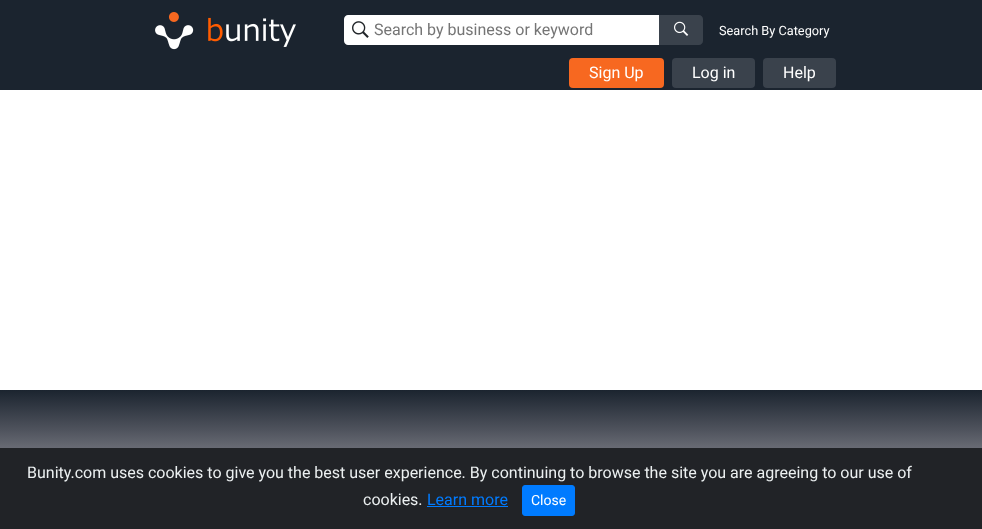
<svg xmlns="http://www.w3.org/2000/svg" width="982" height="529">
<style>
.a{font:16px Roboto;fill:#757575}
.b{font:12.75px Roboto;fill:#fff}
.c{font:16px Roboto;fill:#fff}
.d{font:16px Roboto;fill:#ecf0f1}
.e{font:16px Roboto;fill:#007bff}
.f{font:14px Roboto;fill:#fff}
</style>
<defs>
<linearGradient id="g1" gradientUnits="userSpaceOnUse" x1="491" y1="390" x2="491" y2="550"><stop offset="0" stop-color="#1b242f"/><stop offset="0.25" stop-color="#4f535d"/><stop offset="0.5" stop-color="#878890"/><stop offset="0.75" stop-color="#c2c2c6"/><stop offset="1" stop-color="#fff"/></linearGradient>
</defs>
<rect width="100%" height="100%" fill="#fff"/>
<path fill="#1b242f" d="M0 0h982v90H0z"/>
<image href="1.png" x="155" y="12" width="141" height="38"/>
<path fill="#fff" d="M348 15h311v30h-311c-2 0-4-2-4-4v-22c0-2 2-4 4-4z"/>
<image href="2.png" x="352" y="21" width="17" height="17"/>
<path fill="#3a424c" d="M659 15h40c2 0 4 2 4 4v22c0 2-2 4-4 4h-40z"/>
<image href="3.png" x="674" y="21" width="15" height="15"/>
<rect fill="#f76820" x="569" y="58" width="95" height="30" rx="4"/>
<rect fill="#3a424c" x="672" y="58" width="83" height="30" rx="4"/>
<rect fill="#3a424c" x="763" y="58" width="73" height="30" rx="4"/>
<path fill="url(#g1)" d="M0 390h982v58H0z"/>
<path fill="#212327" d="M0 448h982v81H0z"/>
<path fill="#007bff" d="M427 506h81v1H427z"/>
<rect fill="#007bff" stroke="#007bff" x="522.5" y="485.5" width="52" height="30" rx="2.5"/>
<text class="a" x="374" y="35">Search by business or keyword</text>
<text class="b" x="719" y="35">Search By Category</text>
<text class="c" x="589" y="78">Sign Up</text>
<text class="c" x="692" y="78">Log in</text>
<text class="c" x="783" y="78">Help</text>
<text class="d" x="27" y="478">Bunity.com uses cookies to give you the best user experience. By continuing to browse the site you are agreeing to our use of</text>
<text class="d" x="363" y="505">cookies.</text>
<text class="e" x="427" y="505">Learn more</text>
<text class="f" x="531" y="505">Close</text>
</svg>
